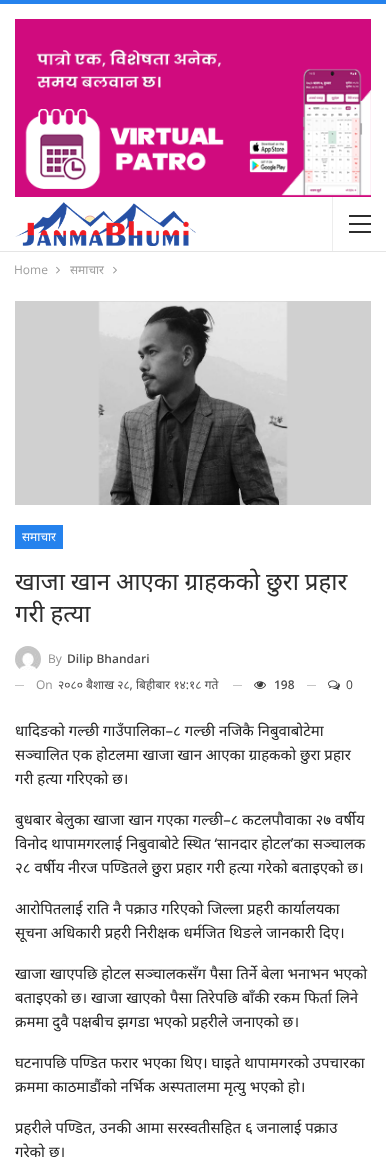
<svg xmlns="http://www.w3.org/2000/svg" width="386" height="1170">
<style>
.a{font:12px Open Sans;fill:#9e9e9e}
.b{font:12px Noto Sans;fill:#9e9e9e}
.c{font:12px Noto Sans;fill:#fff}
.d{font:24px Noto Sans;fill:#2d2d2d}
.e{font:12px Open Sans;fill:#8f8f8f}
.f{font:600 12px Open Sans;fill:#4d4d4d}
.g{font:12px Noto Sans;fill:#4d4d4d}
.h{font:12px Open Sans;fill:#3a3a3a}
.i{font:15px Noto Sans;fill:#222}
</style>
<rect width="100%" height="100%" fill="#2582ed"/>
<path fill="#fff" d="M0 4h386v247H0z"/>
<image href="1.png" x="15" y="19" width="356" height="178"/>
<path fill="#e5e5e5" d="M0 251h386v1H0z"/>
<image href="2.png" x="15" y="202" width="181" height="44"/>
<path fill="#ededed" d="M332 197h1v54H332z"/>
<path fill="#2c2c2c" d="M349 223h22v2H349z"/>
<path fill="#2c2c2c" d="M349 215h22v2H349z"/>
<path fill="#2c2c2c" d="M349 231h22v2H349z"/>
<path fill="#fff" d="M0 252h386v918H0z"/>
<image href="3.png" x="56" y="266" width="4" height="8"/>
<image href="3.png" x="113" y="266" width="4" height="8"/>
<image href="4.png" x="15" y="301" width="356" height="204"/>
<path fill="#2582ed" d="M15 525h48v24H15z"/>
<image href="5.png" x="15" y="646" width="26" height="24"/>
<path fill="#c4c4c4" d="M15 685h9v1H15z"/>
<path fill="#c4c4c4" d="M233 685h9v1H233z"/>
<image href="6.png" x="254" y="681" width="12" height="8"/>
<path fill="#c4c4c4" d="M307 685h9v1H307z"/>
<image href="7.png" x="328" y="680" width="12" height="10"/>
<text class="a" x="14" y="274">Home</text>
<text class="b" x="70" y="274">समाचार</text>
<text class="c" x="22" y="541">समाचार</text>
<text class="d" x="15" y="590" word-spacing="-0.25">खाजा खान आएका ग्राहकको छुरा प्रहार</text>
<text class="d" x="15" y="622" word-spacing="-0.25">गरी हत्या</text>
<text class="e" x="48" y="663">By</text>
<text class="f" x="67" y="663">Dilip Bhandari</text>
<text class="e" x="36" y="689">On</text>
<text class="g" x="58" y="689">२०८० बैशाख २८, बिहीबार १४:१८ गते</text>
<text class="f" x="274" y="689">198</text>
<text class="h" x="346" y="689">0</text>
<text class="i" x="15" y="736">धादिङको गल्छी गाउँपालिका–८ गल्छी नजिकै निबुवाबोटेमा</text>
<text class="i" x="15" y="760">सञ्चालित एक होटलमा खाजा खान आएका ग्राहकको छुरा प्रहार</text>
<text class="i" x="15" y="784">गरी हत्या गरिएको छ।</text>
<text class="i" x="15" y="825">बुधबार बेलुका खाजा खान गएका गल्छी–८ कटलपौवाका २७ वर्षीय</text>
<text class="i" x="15" y="849">विनोद थापामगरलाई निबुवाबोटे स्थित ‘सानदार होटल’का सञ्चालक</text>
<text class="i" x="15" y="873">२८ वर्षीय नीरज पण्डितले छुरा प्रहार गरी हत्या गरेको बताइएको छ।</text>
<text class="i" x="15" y="914">आरोपितलाई राति नै पक्राउ गरिएको जिल्ला प्रहरी कार्यालयका</text>
<text class="i" x="15" y="938">सूचना अधिकारी प्रहरी निरीक्षक धर्मजित थिङले जानकारी दिए।</text>
<text class="i" x="15" y="979">खाजा खाएपछि होटल सञ्चालकसँग पैसा तिर्ने बेला भनाभन भएको</text>
<text class="i" x="15" y="1003">बताइएको छ। खाजा खाएको पैसा तिरेपछि बाँकी रकम फिर्ता लिने</text>
<text class="i" x="15" y="1027">क्रममा दुवै पक्षबीच झगडा भएको प्रहरीले जनाएको छ।</text>
<text class="i" x="15" y="1068">घटनापछि पण्डित फरार भएका थिए। घाइते थापामगरको उपचारका</text>
<text class="i" x="15" y="1092">क्रममा काठमाडौंको नर्भिक अस्पतालमा मृत्यु भएको हो।</text>
<text class="i" x="15" y="1133">प्रहरीले पण्डित, उनकी आमा सरस्वतीसहित ६ जनालाई पक्राउ</text>
<text class="i" x="15" y="1157">गरेको छ।</text>
</svg>
